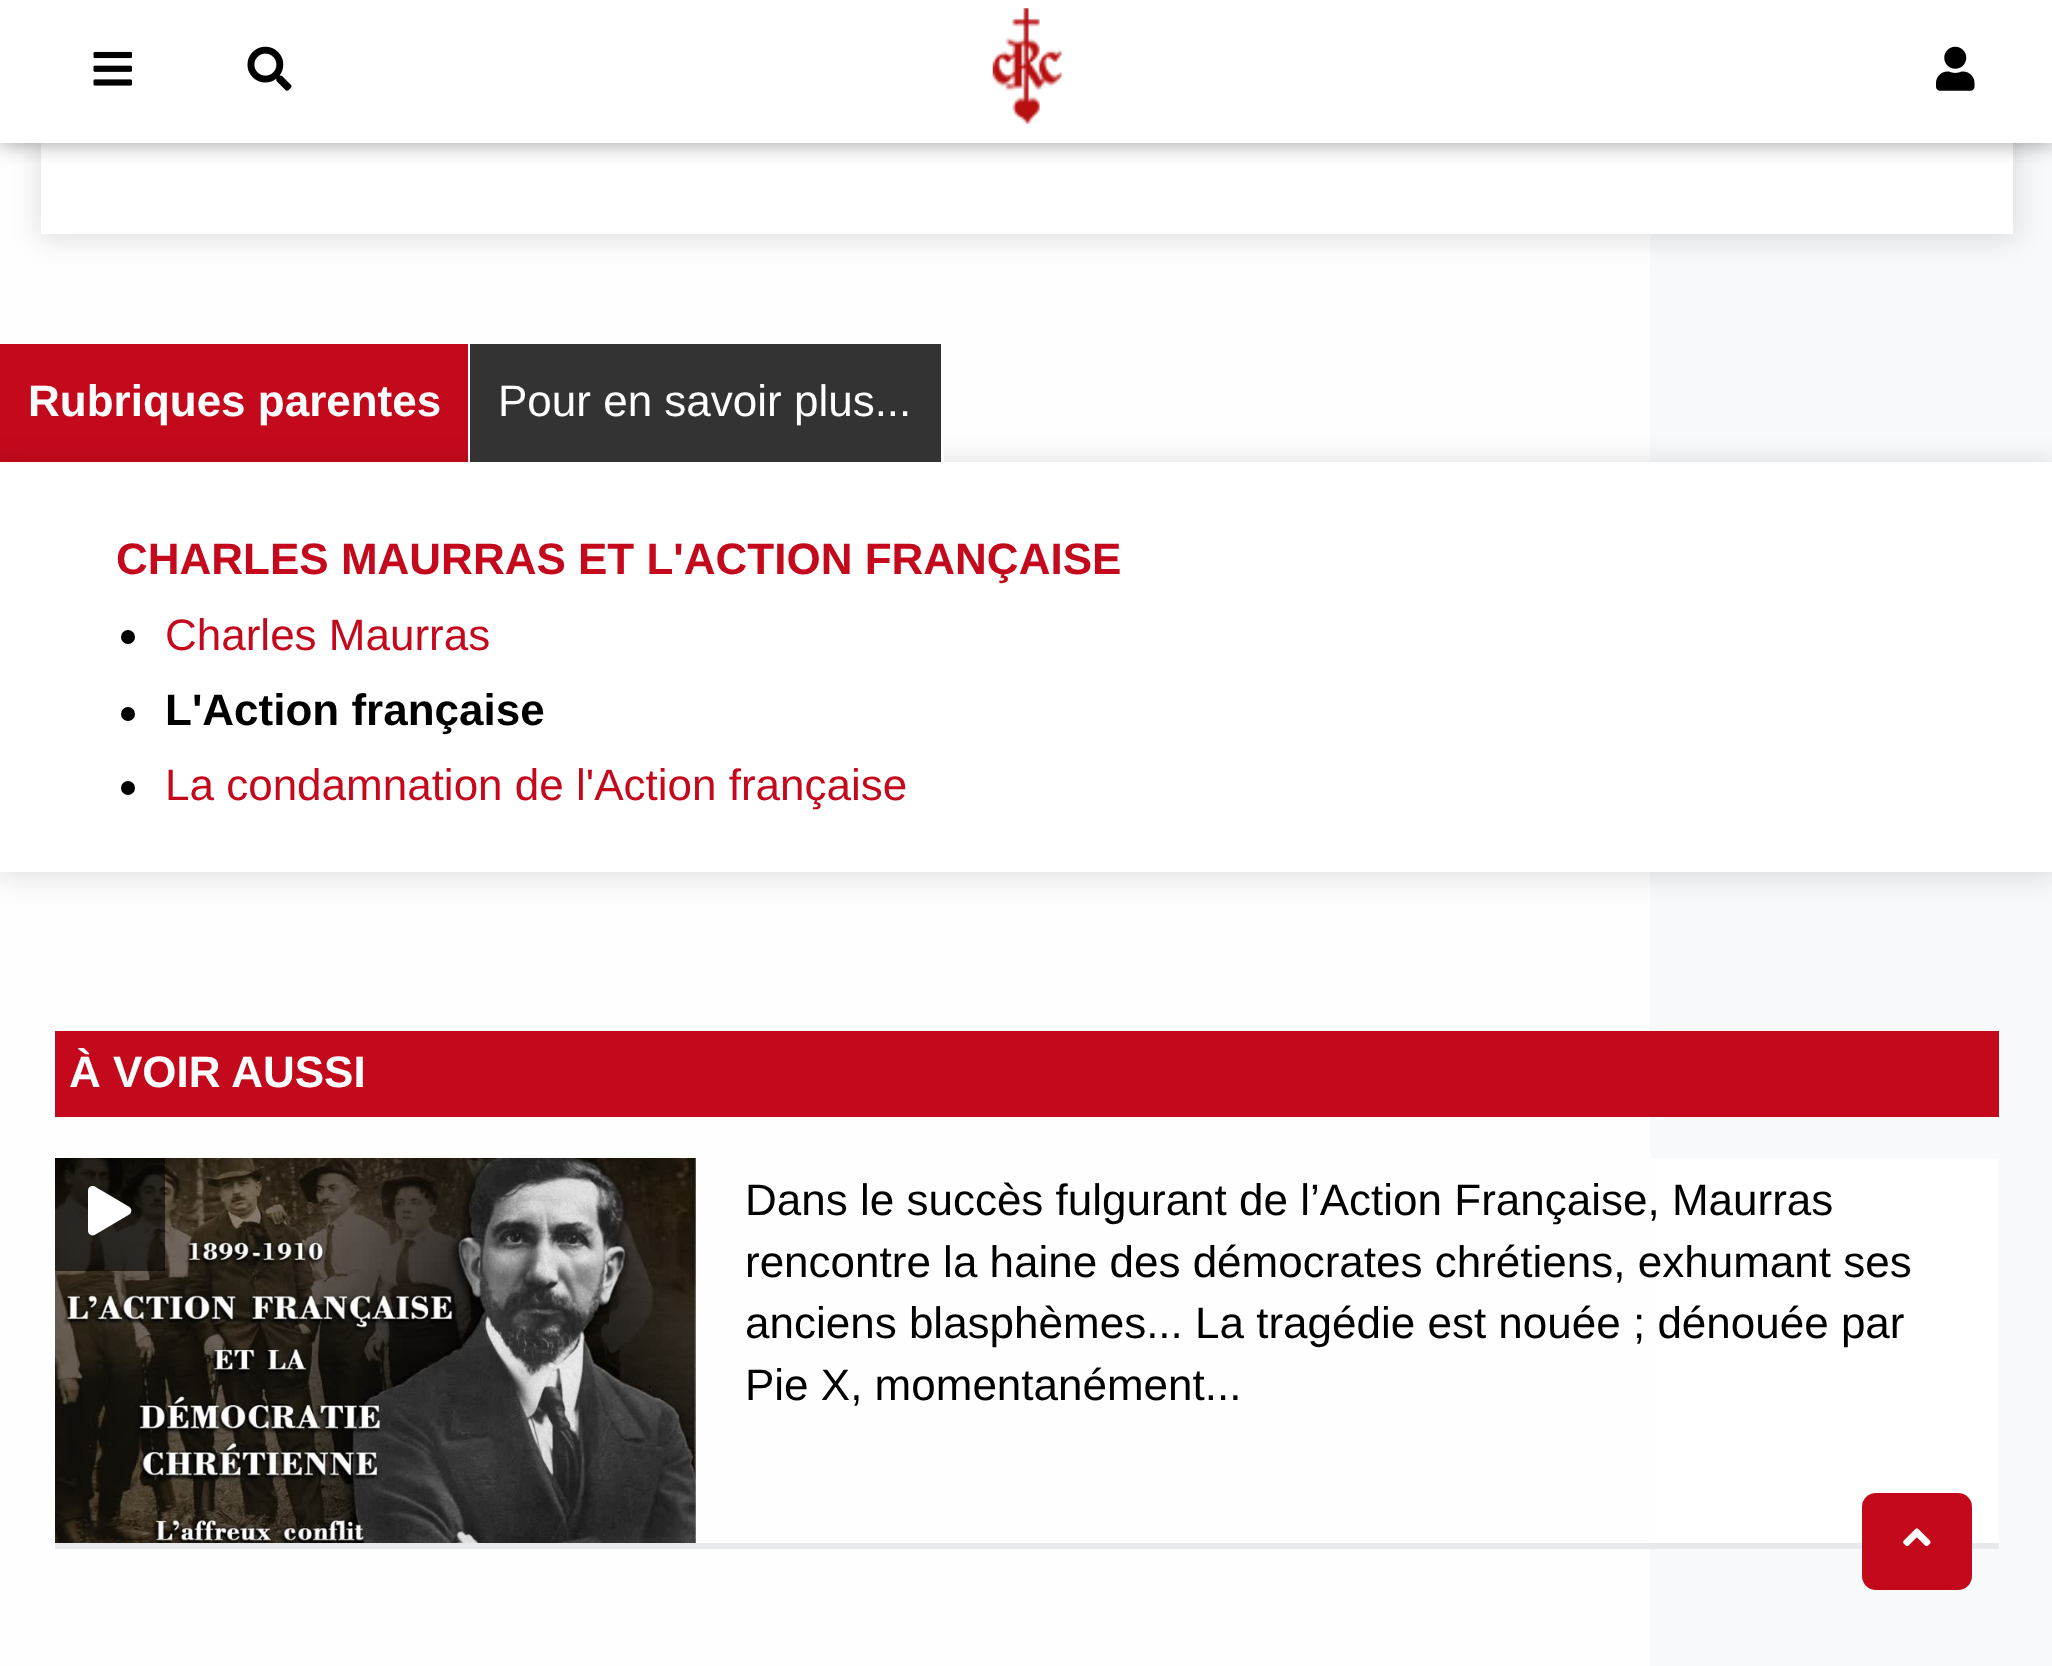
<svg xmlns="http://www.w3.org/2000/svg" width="2052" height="1666">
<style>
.a{font:bold 44px Liberation Sans;fill:#fff}
.b{font:44px Liberation Sans;fill:#fff}
.c{font:bold 44px Liberation Sans;fill:#c5091d}
.d{font:44px Liberation Sans;fill:#c5091d}
.e{font:bold 44px Liberation Sans;fill:#000}
.f{font:44px Liberation Sans;fill:#000}
</style>
<rect width="100%" height="100%" fill="#f8f9fa"/>
<path fill="#fefeff" d="M0 143h1650v1523H0z"/>
<path fill="#0000001f" filter="blur(14px)" d="M39 -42h1977v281H39z"/>
<path fill="#fff" d="M41 143h1972v91H41z"/>
<path fill="#00000066" filter="blur(11px)" d="M0 0h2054v143H0z"/>
<path fill="#fff" d="M0 0h2052v143H0z"/>
<image href="1.png" x="93" y="51" width="39" height="35"/>
<image href="2.png" x="247" y="46" width="45" height="45"/>
<image href="3.png" x="992" y="8" width="70" height="116"/>
<image href="4.png" x="1936" y="46" width="39" height="45"/>
<path fill="#c5091d" d="M0 344h468v118H0z"/>
<path fill="#0000001f" filter="blur(14px)" d="M-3 462h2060v415H-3z"/>
<path fill="#333" d="M470 344h471v118H470z"/>
<path fill="#fff" d="M941 439h3v23H941z"/>
<path fill="#fff" d="M0 462h2052v410H0z"/>
<circle fill="#000" cx="128" cy="637" r="7"/>
<circle fill="#000" cx="128" cy="714" r="7"/>
<circle fill="#000" cx="128" cy="788" r="7"/>
<path fill="#fff" d="M1650 1158h349v385H1650z"/>
<path fill="#e7e9ed" d="M55 1543h1944v6H55z"/>
<rect fill="#c5091d" x="1862" y="1493" width="110" height="97" rx="14"/>
<image href="5.png" x="1903" y="1528" width="28" height="19"/>
<path fill="#c5091d" d="M55 1031h1944v86H55z"/>
<image href="6.png" x="55" y="1158" width="641" height="385"/>
<path fill="#00000099" d="M55 1158h110v113H55z"/>
<image href="7.png" x="88" y="1185" width="44" height="51"/>
<text class="a" x="28" y="416">Rubriques parentes</text>
<text class="b" x="498" y="416">Pour en savoir plus...</text>
<text class="c" x="116" y="574">CHARLES MAURRAS ET L'ACTION FRANÇAISE</text>
<text class="d" x="165" y="650">Charles Maurras</text>
<text class="e" x="165" y="725">L'Action française</text>
<text class="d" x="165" y="800">La condamnation de l'Action française</text>
<text class="a" x="69" y="1087">À VOIR AUSSI</text>
<text class="f" x="745" y="1215">Dans le succès fulgurant de l’Action Française, Maurras</text>
<text class="f" x="745" y="1277">rencontre la haine des démocrates chrétiens, exhumant ses</text>
<text class="f" x="745" y="1338">anciens blasphèmes... La tragédie est nouée ; dénouée par</text>
<text class="f" x="745" y="1400">Pie X, momentanément...</text>
</svg>
